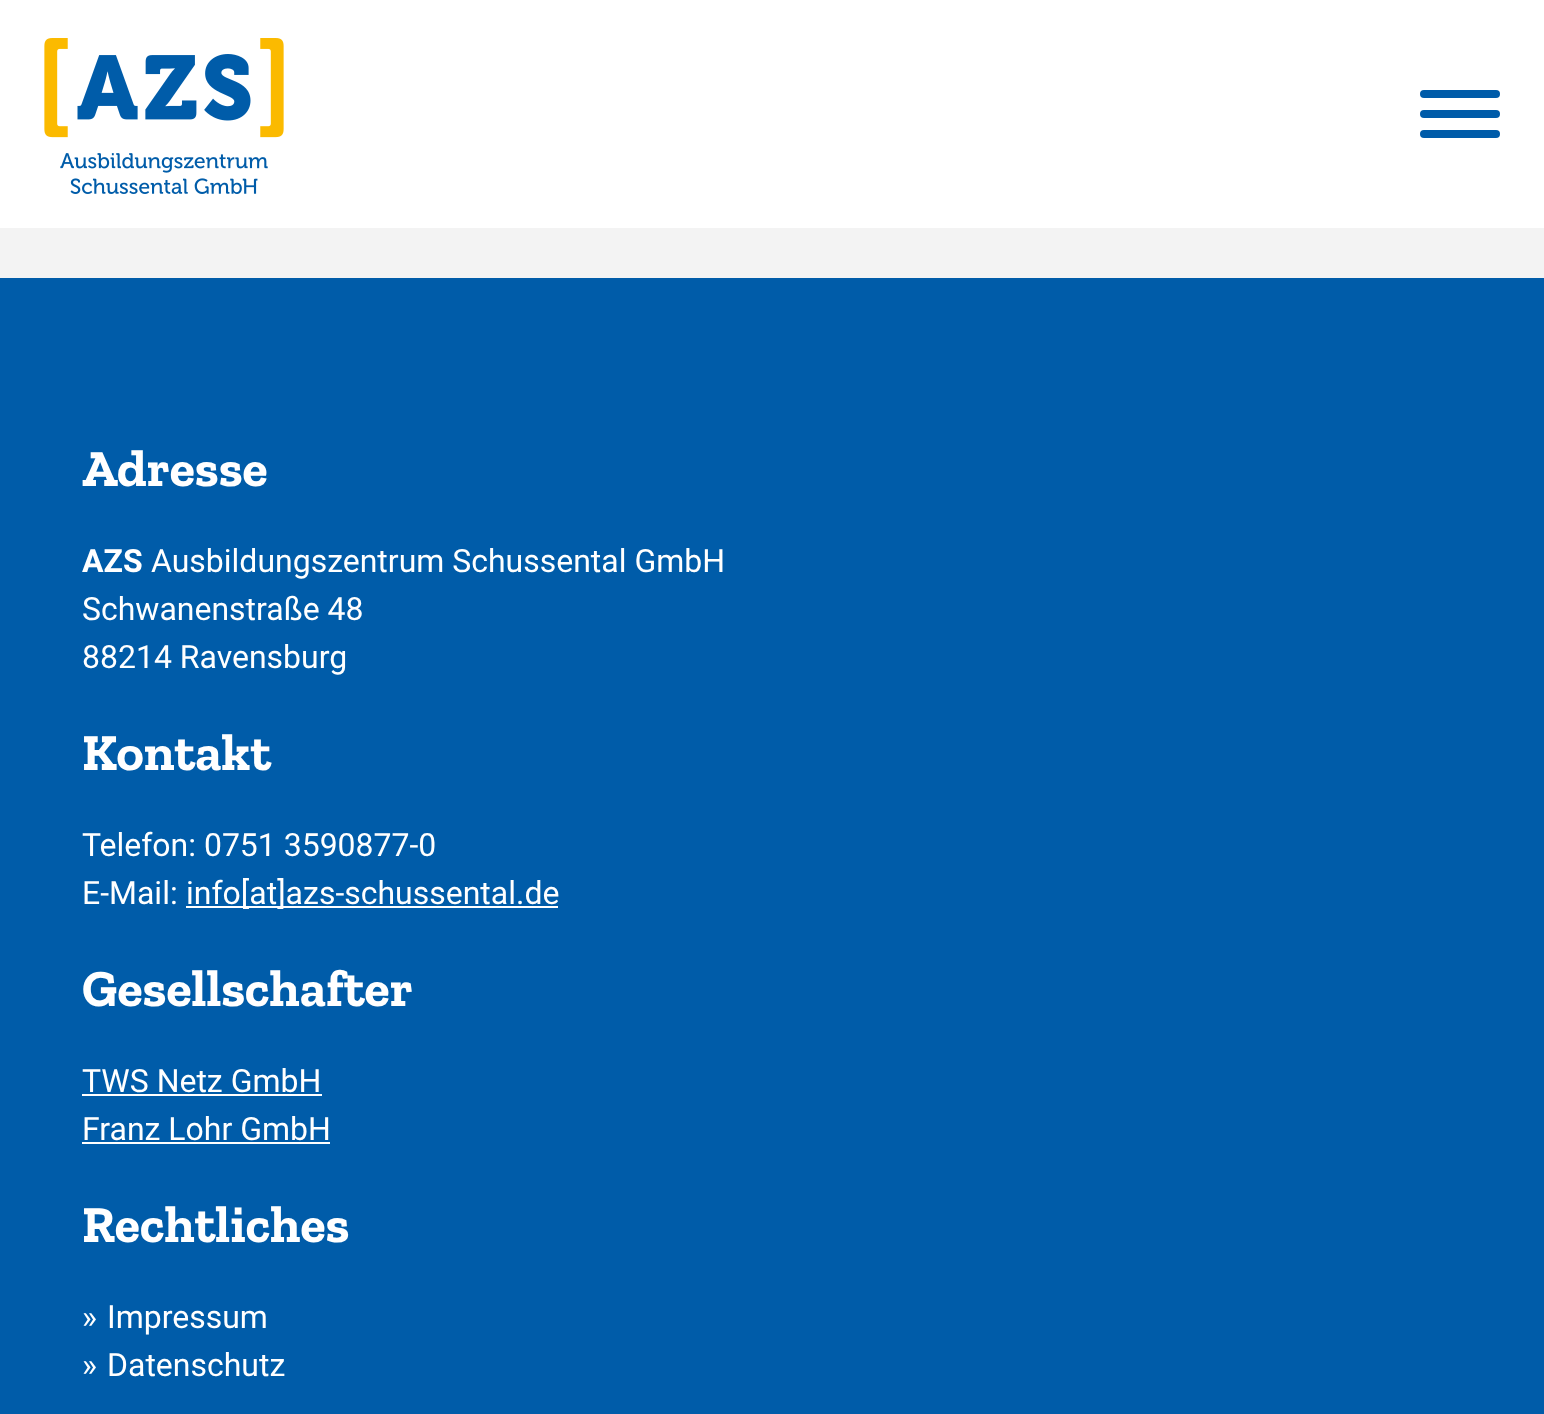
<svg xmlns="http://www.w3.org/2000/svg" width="1544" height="1414">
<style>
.a{font:bold 52px Zilla Slab;fill:#fff}
.b{font:bold 32px Roboto;fill:#fff}
.c{font:32px Roboto;fill:#fff}
</style>
<rect width="100%" height="100%" fill="#f3f3f3"/>
<path fill="#fff" d="M0 0h1544v228H0z"/>
<image href="1.png" x="44" y="38" width="240" height="156"/>
<rect fill="#005ca9" x="1420" y="90" width="80" height="8" rx="4"/>
<rect fill="#005ca9" x="1420" y="110" width="80" height="8" rx="4"/>
<rect fill="#005ca9" x="1420" y="130" width="80" height="8" rx="4"/>
<path fill="#005ca9" d="M0 278h1544v1136H0z"/>
<path fill="#fff" d="M186 906h372v2H186z"/>
<path fill="#fff" d="M82 1094h240v2H82z"/>
<path fill="#fff" d="M82 1142h248v2H82z"/>
<text class="a" x="82" y="486">Adresse</text>
<text class="b" x="82" y="572">AZS</text>
<text class="c" x="151" y="572">Ausbildungszentrum Schussental GmbH</text>
<text class="c" x="82" y="620">Schwanenstraße 48</text>
<text class="c" x="82" y="668">88214 Ravensburg</text>
<text class="a" x="82" y="770">Kontakt</text>
<text class="c" x="82" y="856">Telefon: 0751 3590877-0</text>
<text class="c" x="82" y="904">E-Mail:</text>
<text class="c" x="186" y="904">info[at]azs-schussental.de</text>
<text class="a" x="82" y="1006">Gesellschafter</text>
<text class="c" x="82" y="1092">TWS Netz GmbH</text>
<text class="c" x="82" y="1140">Franz Lohr GmbH</text>
<text class="a" x="82" y="1242">Rechtliches</text>
<text class="c" x="82" y="1328">»</text>
<text class="c" x="107" y="1328">Impressum</text>
<text class="c" x="82" y="1376">»</text>
<text class="c" x="107" y="1376">Datenschutz</text>
</svg>
